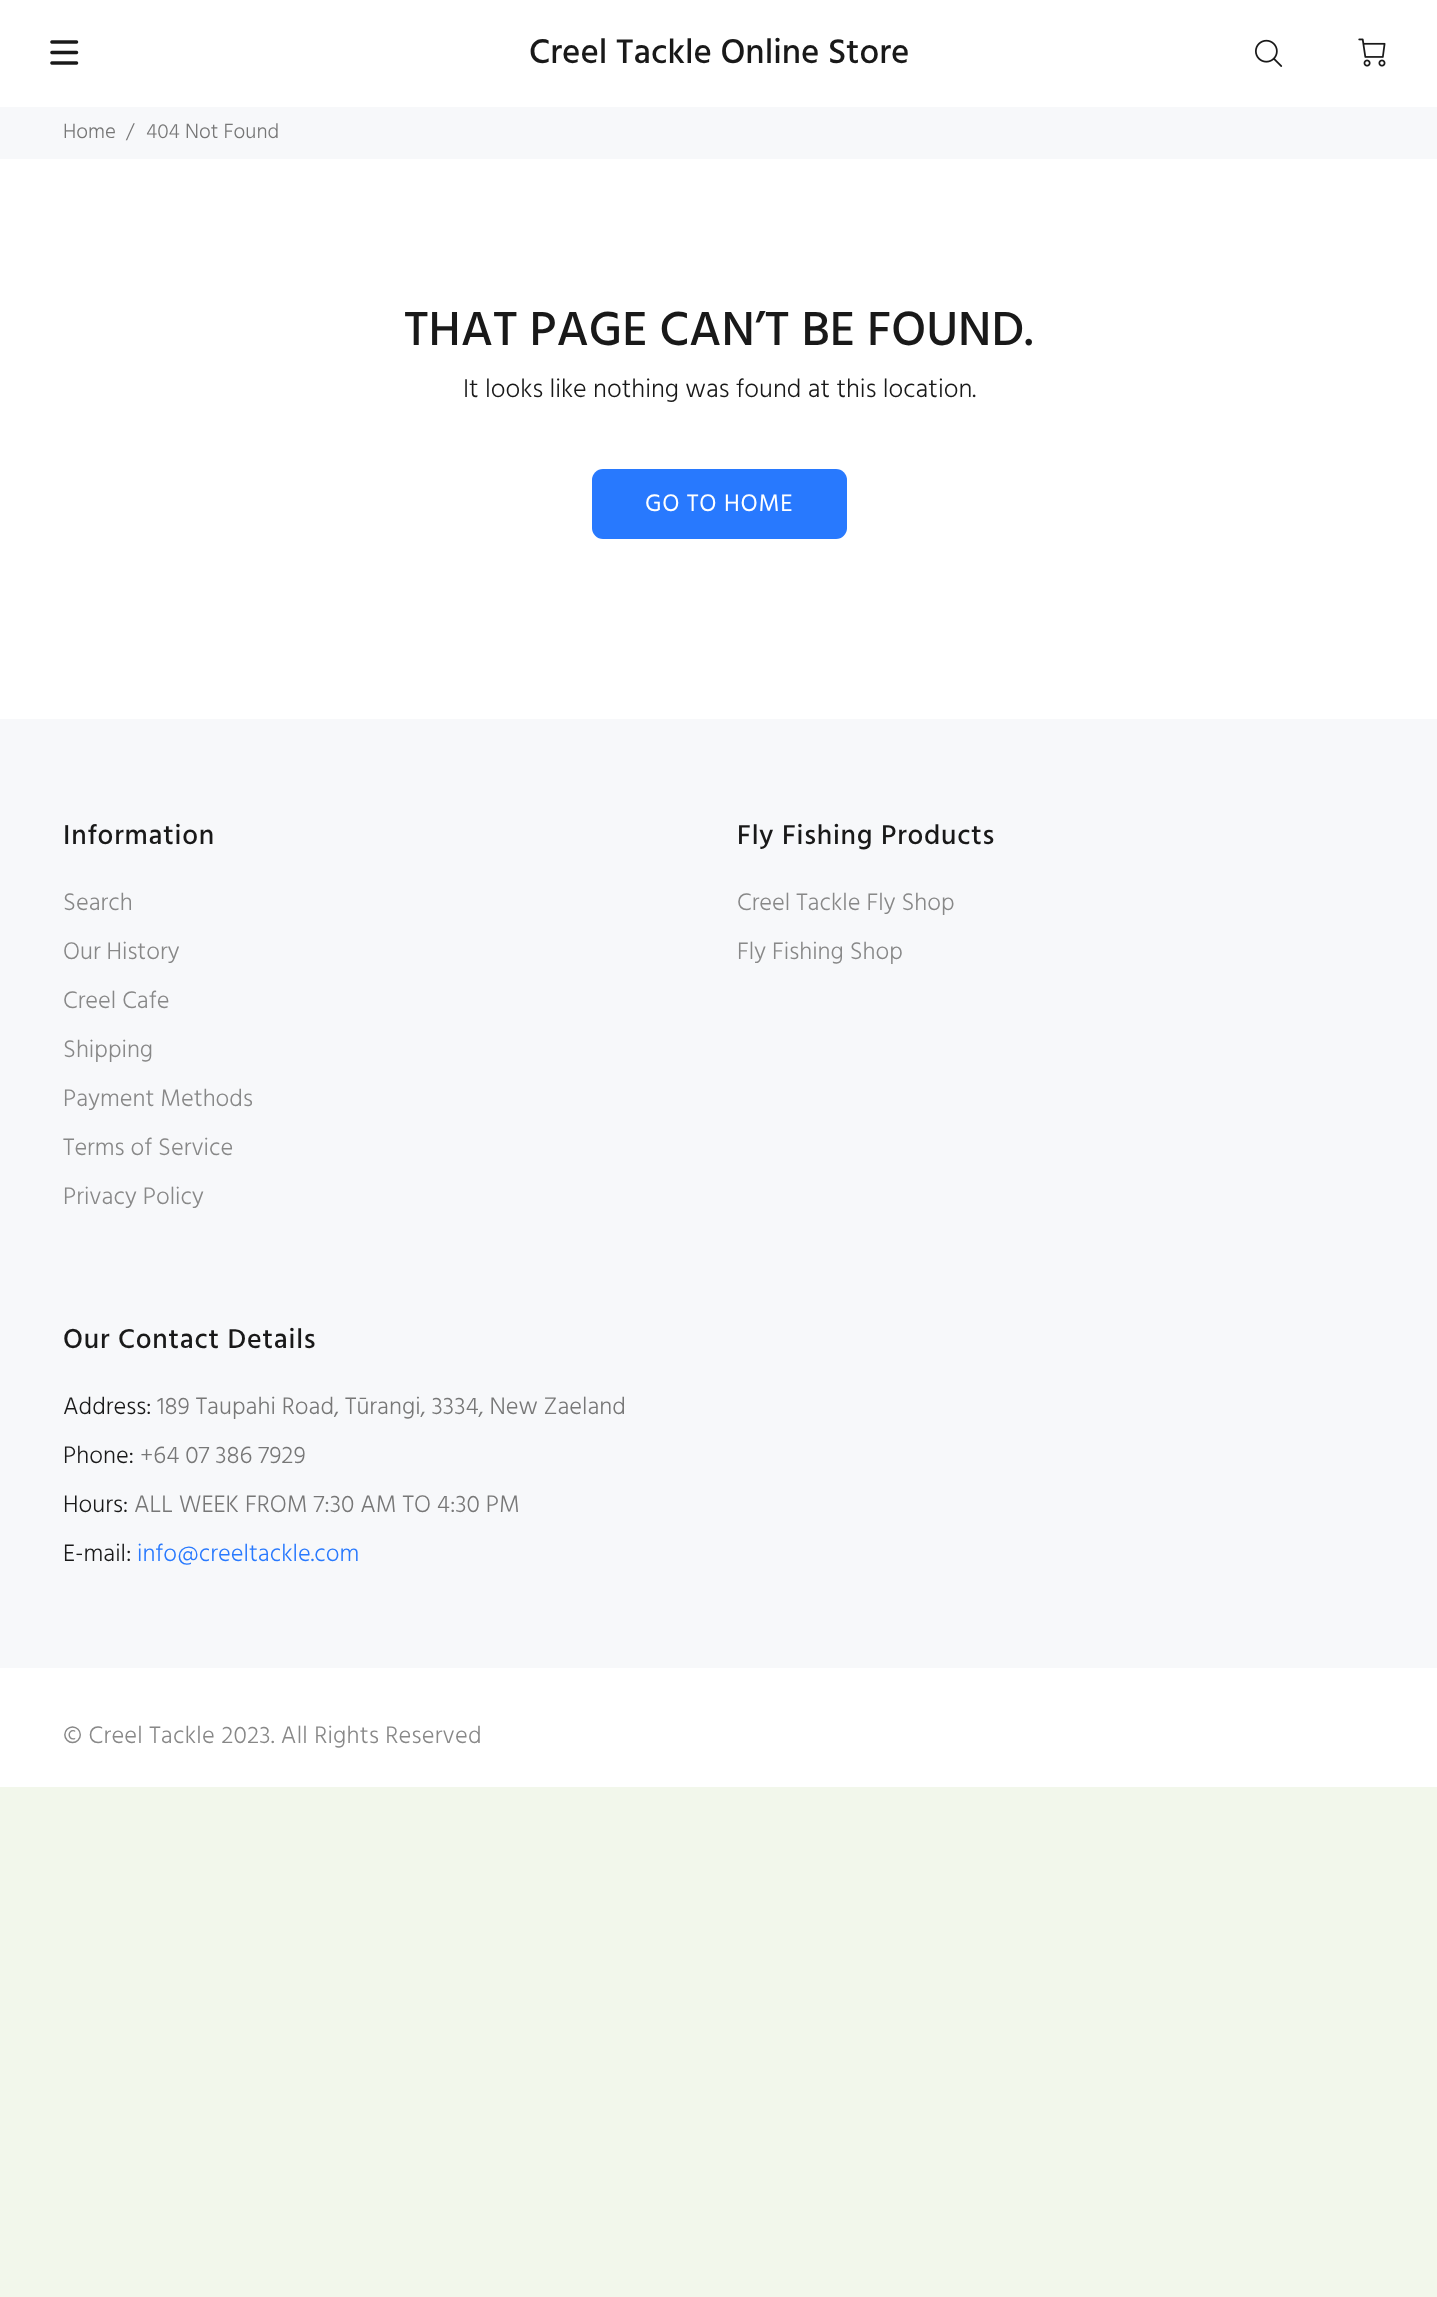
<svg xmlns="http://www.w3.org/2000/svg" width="1437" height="2297">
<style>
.a{font:500 35px Hind;fill:#191919}
.b{font:300 21px Hind;fill:#777}
.c{font:500 49px Hind;fill:#191919}
.d{font:300 26.25px Hind;fill:#191919}
.e{font:24.5px Hind;letter-spacing:0.75px;fill:#fff}
.f{font:500 28px Hind;letter-spacing:0.8px;fill:#191919}
.g{font:300 24.5px Hind;fill:#888}
.h{font:300 24.5px Hind;fill:#191919}
.i{font:300 24.5px Hind;fill:#777}
.j{font:300 24.5px Hind;fill:#2879fe}
.k{font:300 24.5px Hind;letter-spacing:0.25px;fill:#888}
</style>
<rect width="100%" height="100%" fill="#f2f7eb"/>
<path fill="#fff" d="M0 0h1437v107H0z"/>
<image href="1.png" x="50" y="40" width="29" height="25"/>
<image href="2.png" x="1255" y="39" width="28" height="28"/>
<image href="3.png" x="1358" y="38" width="28" height="29"/>
<path fill="#f7f8fa" d="M0 107h1437v52H0z"/>
<path fill="#fff" d="M0 159h1437v560H0z"/>
<rect fill="#2879fe" x="592" y="469" width="255" height="70" rx="11"/>
<path fill="#f7f8fa" d="M0 719h1437v949H0z"/>
<path fill="#fff" d="M0 1668h1437v119H0z"/>
<text class="a" x="529" y="63">Creel Tackle Online Store</text>
<text class="b" x="63" y="138">Home</text>
<text class="b" x="126" y="138">/</text>
<text class="b" x="146" y="138">404 Not Found</text>
<text class="c" x="404" y="345">THAT PAGE CAN’T BE FOUND.</text>
<text class="d" x="463" y="397">It looks like nothing was found at this location.</text>
<text class="e" x="645" y="511">GO TO HOME</text>
<text class="f" x="63" y="844">Information</text>
<text class="g" x="63" y="910">Search</text>
<text class="g" x="63" y="959">Our History</text>
<text class="g" x="63" y="1008">Creel Cafe</text>
<text class="g" x="63" y="1057">Shipping</text>
<text class="g" x="63" y="1106">Payment Methods</text>
<text class="g" x="63" y="1155">Terms of Service</text>
<text class="g" x="63" y="1204">Privacy Policy</text>
<text class="f" x="737" y="844">Fly Fishing Products</text>
<text class="g" x="737" y="910">Creel Tackle Fly Shop</text>
<text class="g" x="737" y="959">Fly Fishing Shop</text>
<text class="f" x="63" y="1348">Our Contact Details</text>
<text class="h" x="63" y="1414">Address:</text>
<text class="i" x="157" y="1414">189 Taupahi Road, Tūrangi, 3334, New Zaeland</text>
<text class="h" x="63" y="1463">Phone:</text>
<text class="i" x="140" y="1463">+64 07 386 7929</text>
<text class="h" x="63" y="1512">Hours:</text>
<text class="i" x="134" y="1512">ALL WEEK FROM 7:30 AM TO 4:30 PM</text>
<text class="h" x="63" y="1561">E-mail:</text>
<text class="j" x="137" y="1561">info@creeltackle.com</text>
<text class="k" x="63" y="1743">© Creel Tackle 2023. All Rights Reserved</text>
</svg>
